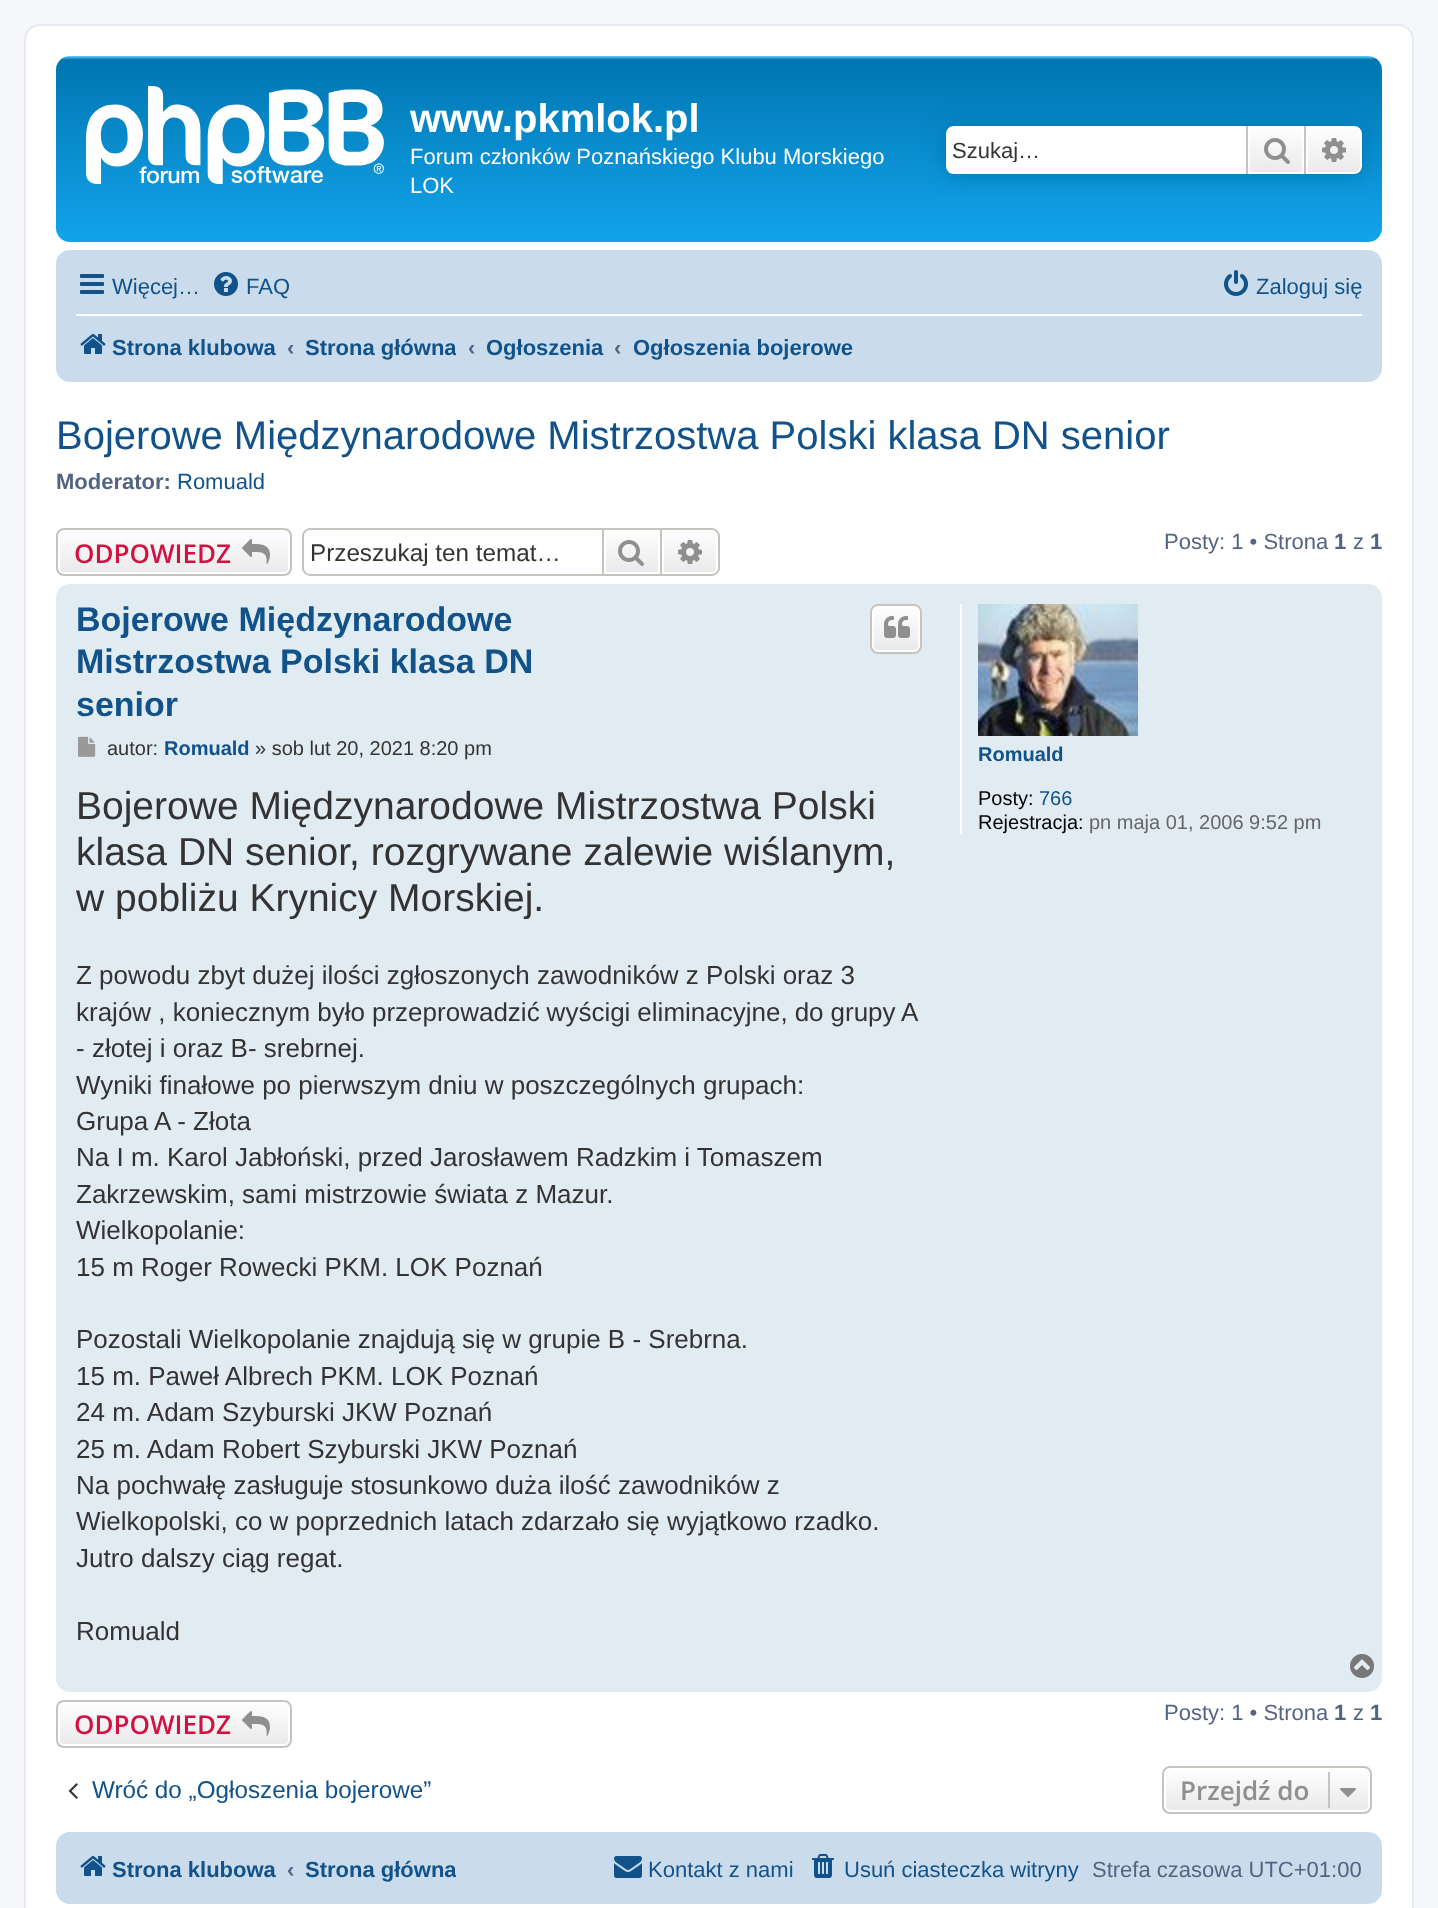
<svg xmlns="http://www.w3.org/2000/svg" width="1438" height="1908">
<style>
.a{font:bold 40px Liberation Sans;fill:#fff}
.b{font:22px Liberation Sans;fill:#fff}
.c{font:22px Liberation Sans;fill:#333}
.d{font:22px Liberation Sans;fill:#105289}
.e{font:bold 22px Liberation Sans;fill:#105289}
.f{font:bold 22px Liberation Sans;fill:#536482}
.g{font:40px Liberation Sans;fill:#105289}
.h{font:600 26px Open Sans;fill:#d31141}
.i{font:24.25px Liberation Sans;fill:#333}
.j{font:22px Liberation Sans;fill:#536482}
.k{font:bold 34px Liberation Sans;fill:#105289}
.l{font:20px Liberation Sans;fill:#333}
.m{font:bold 20px Liberation Sans;fill:#105289}
.n{font:39px Liberation Sans;fill:#333}
.o{font:26px Liberation Sans;fill:#333}
.p{font:20px Liberation Sans;fill:#000}
.q{font:20px Liberation Sans;fill:#105289}
.r{font:20px Liberation Sans;fill:#666}
.s{font:24.25px Liberation Sans;fill:#105289}
.t{font:600 26px Open Sans;fill:#8f8f8f}
</style>
<defs>
<linearGradient id="g1" gradientUnits="userSpaceOnUse" x1="719" y1="56" x2="719" y2="242"><stop offset="0" stop-color="#6aceff"/><stop offset="0.02" stop-color="#0076b1"/><stop offset="0.99" stop-color="#12a3eb"/><stop offset="1" stop-color="#12a3eb"/></linearGradient>
<linearGradient id="g2" gradientUnits="userSpaceOnUse" x1="1276" y1="126" x2="1276" y2="174"><stop offset="0" stop-color="#fff"/><stop offset="1" stop-color="#e9e9e9"/></linearGradient>
<linearGradient id="g3" gradientUnits="userSpaceOnUse" x1="1334" y1="126" x2="1334" y2="174"><stop offset="0" stop-color="#fff"/><stop offset="1" stop-color="#e9e9e9"/></linearGradient>
<clipPath id="clip1"><rect x="56" y="528" width="236" height="48" rx="8"/></clipPath>
<linearGradient id="g4" gradientUnits="userSpaceOnUse" x1="174" y1="530" x2="174" y2="574"><stop offset="0" stop-color="#fff"/><stop offset="1" stop-color="#e9e9e9"/></linearGradient>
<linearGradient id="g5" gradientUnits="userSpaceOnUse" x1="632" y1="530" x2="632" y2="574"><stop offset="0" stop-color="#fff"/><stop offset="1" stop-color="#e9e9e9"/></linearGradient>
<linearGradient id="g6" gradientUnits="userSpaceOnUse" x1="690" y1="530" x2="690" y2="574"><stop offset="0" stop-color="#fff"/><stop offset="1" stop-color="#e9e9e9"/></linearGradient>
<clipPath id="clip2"><rect x="870" y="604" width="52" height="50" rx="8"/></clipPath>
<linearGradient id="g7" gradientUnits="userSpaceOnUse" x1="896" y1="606" x2="896" y2="652"><stop offset="0" stop-color="#fff"/><stop offset="1" stop-color="#e9e9e9"/></linearGradient>
<clipPath id="clip3"><rect x="56" y="1700" width="236" height="48" rx="8"/></clipPath>
<linearGradient id="g8" gradientUnits="userSpaceOnUse" x1="174" y1="1702" x2="174" y2="1746"><stop offset="0" stop-color="#fff"/><stop offset="1" stop-color="#e9e9e9"/></linearGradient>
<clipPath id="clip4"><rect x="1162" y="1766" width="210" height="48" rx="8"/></clipPath>
<linearGradient id="g9" gradientUnits="userSpaceOnUse" x1="1267" y1="1768" x2="1267" y2="1812"><stop offset="0" stop-color="#fff"/><stop offset="1" stop-color="#e9e9e9"/></linearGradient>
<clipPath id="clip5"><path d="M952 138h280v24H952z"/></clipPath>
<clipPath id="clip6"><path d="M306 322h150v50H306z"/></clipPath>
<clipPath id="clip7"><path d="M306 1844h150v50H306z"/></clipPath>
</defs>
<rect width="100%" height="100%" fill="#f5f7fa"/>
<rect fill="#fff" stroke="#e6e9ed" stroke-width="2" x="25" y="25" width="1388" height="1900" rx="15"/>
<rect fill="url(#g1)" x="56" y="56" width="1326" height="186" rx="14"/>
<image href="1.png" x="86" y="86" width="298" height="98"/>
<rect fill="#0075b0" filter="blur(10px)" x="946" y="126" width="416" height="48" rx="8"/>
<path fill="#fff" d="M954 126h292v48h-292c-4.5 0-8-3.5-8-8v-32c0-4.5 3.5-8 8-8z"/>
<path fill="url(#g2)" d="M1250 128h52v44H1250z"/>
<path fill="none" stroke="#fff" stroke-width="2" d="M1249 127h54v46H1249z"/>
<path fill="#c7c3bf" d="M1304 126h2v48H1304z"/>
<path fill="#c7c3bf" d="M1246 126h2v48H1246z"/>
<image href="2.png" x="1264" y="138" width="26" height="26"/>
<path fill="url(#g3)" stroke="#fff" stroke-width="2" d="M1307 127h47c4 0 7 3 7 7v32c0 4-3 7-7 7h-47z"/>
<image href="3.png" x="1322" y="138" width="24" height="24"/>
<rect fill="#cadceb" x="56" y="250" width="1326" height="132" rx="14"/>
<image href="4.png" x="80" y="274" width="24" height="20"/>
<image href="5.png" x="214" y="272" width="24" height="24"/>
<image href="6.png" x="1224" y="270" width="24" height="26"/>
<path fill="#fff" d="M76 314h1286v2H76z"/>
<image href="7.png" x="80" y="334" width="26" height="20"/>
<g clip-path="url(#clip1)">
<path fill="url(#g4)" d="M56 530h236v44H56z"/>
</g>
<rect fill="none" stroke="#fff" stroke-width="2" x="59" y="531" width="230" height="42" rx="5"/>
<rect fill="none" stroke="#c7c3bf" stroke-width="2" x="57" y="529" width="234" height="46" rx="7"/>
<image href="8.png" x="242" y="539" width="28" height="25"/>
<path fill="#c7c3bf" fill-rule="evenodd" d="M310 528h292v48h-292c-4 0-8-4-8-8v-32c0-4 4-8 8-8zm0 2h292v44h-292c-3 0-6-3-6-6v-32c0-3 3-6 6-6z"/>
<path fill="url(#g5)" d="M606 535h52v37H606z"/>
<path fill="none" stroke="#c7c3bf" stroke-width="2" d="M603 529h58v46H603z"/>
<image href="9.png" x="618" y="540" width="26" height="26"/>
<path fill="url(#g6)" stroke="#fff" stroke-width="2" d="M663 531h49c3 0 5 2 5 5v32c0 3-2 5-5 5h-49z"/>
<path fill="#c7c3bf" fill-rule="evenodd" d="M662 528h50c4 0 8 4 8 8v32c0 4-4 8-8 8h-50zm0 2h50c3 0 6 3 6 6v32c0 3-3 6-6 6h-50z"/>
<image href="10.png" x="678" y="540" width="24" height="24"/>
<rect fill="#e1ebf2" x="56" y="584" width="1326" height="1108" rx="14"/>
<g clip-path="url(#clip2)">
<path fill="url(#g7)" d="M870 606h52v46H870z"/>
</g>
<rect fill="none" stroke="#fff" stroke-width="2" x="873" y="607" width="46" height="44" rx="5"/>
<rect fill="none" stroke="#c7c3bf" stroke-width="2" x="871" y="605" width="50" height="48" rx="7"/>
<image href="11.png" x="884" y="616" width="26" height="22"/>
<image href="12.png" x="78" y="736" width="18" height="21"/>
<path fill="#fff" d="M960 604h2v230H960z"/>
<image href="13.png" x="978" y="604" width="160" height="132"/>
<image href="14.png" x="1350" y="1654" width="24" height="24"/>
<g clip-path="url(#clip3)">
<path fill="url(#g8)" d="M56 1702h236v44H56z"/>
</g>
<rect fill="none" stroke="#fff" stroke-width="2" x="59" y="1703" width="230" height="42" rx="5"/>
<rect fill="none" stroke="#c7c3bf" stroke-width="2" x="57" y="1701" width="234" height="46" rx="7"/>
<image href="8.png" x="242" y="1711" width="28" height="25"/>
<image href="15.png" x="68" y="1783" width="10" height="16"/>
<g clip-path="url(#clip4)">
<path fill="url(#g9)" d="M1162 1768h210v44H1162z"/>
</g>
<rect fill="none" stroke="#fff" stroke-width="2" x="1165" y="1769" width="204" height="42" rx="5"/>
<rect fill="none" stroke="#c7c3bf" stroke-width="2" x="1163" y="1767" width="208" height="46" rx="7"/>
<path fill="#c7c3bf" d="M1328 1772h2v36H1328z"/>
<image href="16.png" x="1340" y="1788" width="16" height="9"/>
<rect fill="#cadceb" x="56" y="1832" width="1326" height="72" rx="14"/>
<image href="7.png" x="80" y="1856" width="26" height="20"/>
<image href="17.png" x="614" y="1856" width="28" height="22"/>
<image href="18.png" x="812" y="1854" width="22" height="24"/>
<text class="a" x="410" y="132">www.pkmlok.pl</text>
<text class="b" x="410" y="164">Forum członków Poznańskiego Klubu Morskiego</text>
<text class="b" x="410" y="193">LOK</text>
<g clip-path="url(#clip5)">
<text class="c" x="952" y="158">Szukaj…</text>
</g>
<text class="d" x="112" y="294">Więcej…</text>
<text class="d" x="246" y="294">FAQ</text>
<text class="d" x="1256" y="294">Zaloguj się</text>
<text class="e" x="112" y="355">Strona klubowa</text>
<text class="f" x="287" y="355">‹</text>
<g clip-path="url(#clip6)">
<text class="e" x="305" y="355">Strona główna</text>
</g>
<text class="f" x="468" y="355">‹</text>
<text class="e" x="486" y="355">Ogłoszenia</text>
<text class="f" x="614" y="355">‹</text>
<text class="e" x="633" y="355">Ogłoszenia bojerowe</text>
<text class="g" x="56" y="449">Bojerowe Międzynarodowe Mistrzostwa Polski klasa DN senior</text>
<text class="f" x="56" y="489">Moderator:</text>
<text class="d" x="177" y="489">Romuald</text>
<text class="h" x="74" y="563">ODPOWIEDZ</text>
<text class="i" x="310" y="561">Przeszukaj ten temat…</text>
<text class="j" x="1164" y="549">Posty: 1 • Strona</text>
<text class="f" x="1334" y="549">1</text>
<text class="j" x="1353" y="549">z</text>
<text class="f" x="1370" y="549">1</text>
<text class="k" x="76" y="631">Bojerowe Międzynarodowe</text>
<text class="k" x="76" y="673">Mistrzostwa Polski klasa DN</text>
<text class="k" x="76" y="716">senior</text>
<text class="l" x="107" y="755">autor:</text>
<text class="m" x="164" y="755">Romuald</text>
<text class="l" x="255" y="755">» sob lut 20, 2021 8:20 pm</text>
<text class="n" x="76" y="819">Bojerowe Międzynarodowe Mistrzostwa Polski</text>
<text class="n" x="76" y="865">klasa DN senior, rozgrywane zalewie wiślanym,</text>
<text class="n" x="76" y="911">w pobliżu Krynicy Morskiej.</text>
<text class="o" x="76" y="984">Z powodu zbyt dużej ilości zgłoszonych zawodników z Polski oraz 3</text>
<text class="o" x="76" y="1021">krajów , koniecznym było</text>
<text class="o" x="372" y="1021" word-spacing="-0.25">przeprowadzić wyścigi eliminacyjne, do grupy A</text>
<text class="o" x="76" y="1057">- złotej i oraz B- srebrnej.</text>
<text class="o" x="76" y="1094">Wyniki finałowe po pierwszym dniu w poszczególnych grupach:</text>
<text class="o" x="76" y="1130">Grupa A - Złota</text>
<text class="o" x="76" y="1166">Na I m. Karol Jabłoński, przed Jarosławem Radzkim i Tomaszem</text>
<text class="o" x="76" y="1203">Zakrzewskim, sami mistrzowie świata z Mazur.</text>
<text class="o" x="76" y="1239">Wielkopolanie:</text>
<text class="o" x="76" y="1276">15 m Roger Rowecki PKM. LOK Poznań</text>
<text class="o" x="76" y="1348">Pozostali Wielkopolanie znajdują się w grupie B - Srebrna.</text>
<text class="o" x="76" y="1385">15 m. Paweł Albrech PKM. LOK Poznań</text>
<text class="o" x="76" y="1421">24 m. Adam Szyburski JKW Poznań</text>
<text class="o" x="76" y="1458">25 m. Adam Robert Szyburski JKW Poznań</text>
<text class="o" x="76" y="1494">Na pochwałę zasługuje stosunkowo duża ilość zawodników z</text>
<text class="o" x="76" y="1530">Wielkopolski, co w poprzednich latach zdarzało się wyjątkowo rzadko.</text>
<text class="o" x="76" y="1567">Jutro dalszy ciąg regat.</text>
<text class="o" x="76" y="1640">Romuald</text>
<text class="m" x="978" y="761">Romuald</text>
<text class="p" x="978" y="805">Posty:</text>
<text class="q" x="1039" y="805">766</text>
<text class="p" x="978" y="829">Rejestracja:</text>
<text class="r" x="1089" y="829">pn maja 01, 2006 9:52 pm</text>
<text class="h" x="74" y="1734">ODPOWIEDZ</text>
<text class="j" x="1164" y="1720">Posty: 1 • Strona</text>
<text class="f" x="1334" y="1720">1</text>
<text class="j" x="1353" y="1720">z</text>
<text class="f" x="1370" y="1720">1</text>
<text class="s" x="92" y="1798">Wróć do „Ogłoszenia bojerowe”</text>
<text class="t" x="1180" y="1800">Przejdź do</text>
<text class="e" x="112" y="1877">Strona klubowa</text>
<text class="f" x="287" y="1877">‹</text>
<g clip-path="url(#clip7)">
<text class="e" x="305" y="1877">Strona główna</text>
</g>
<text class="d" x="648" y="1877">Kontakt z nami</text>
<text class="d" x="844" y="1877">Usuń ciasteczka witryny</text>
<text class="j" x="1092" y="1877">Strefa czasowa UTC+01:00</text>
</svg>
